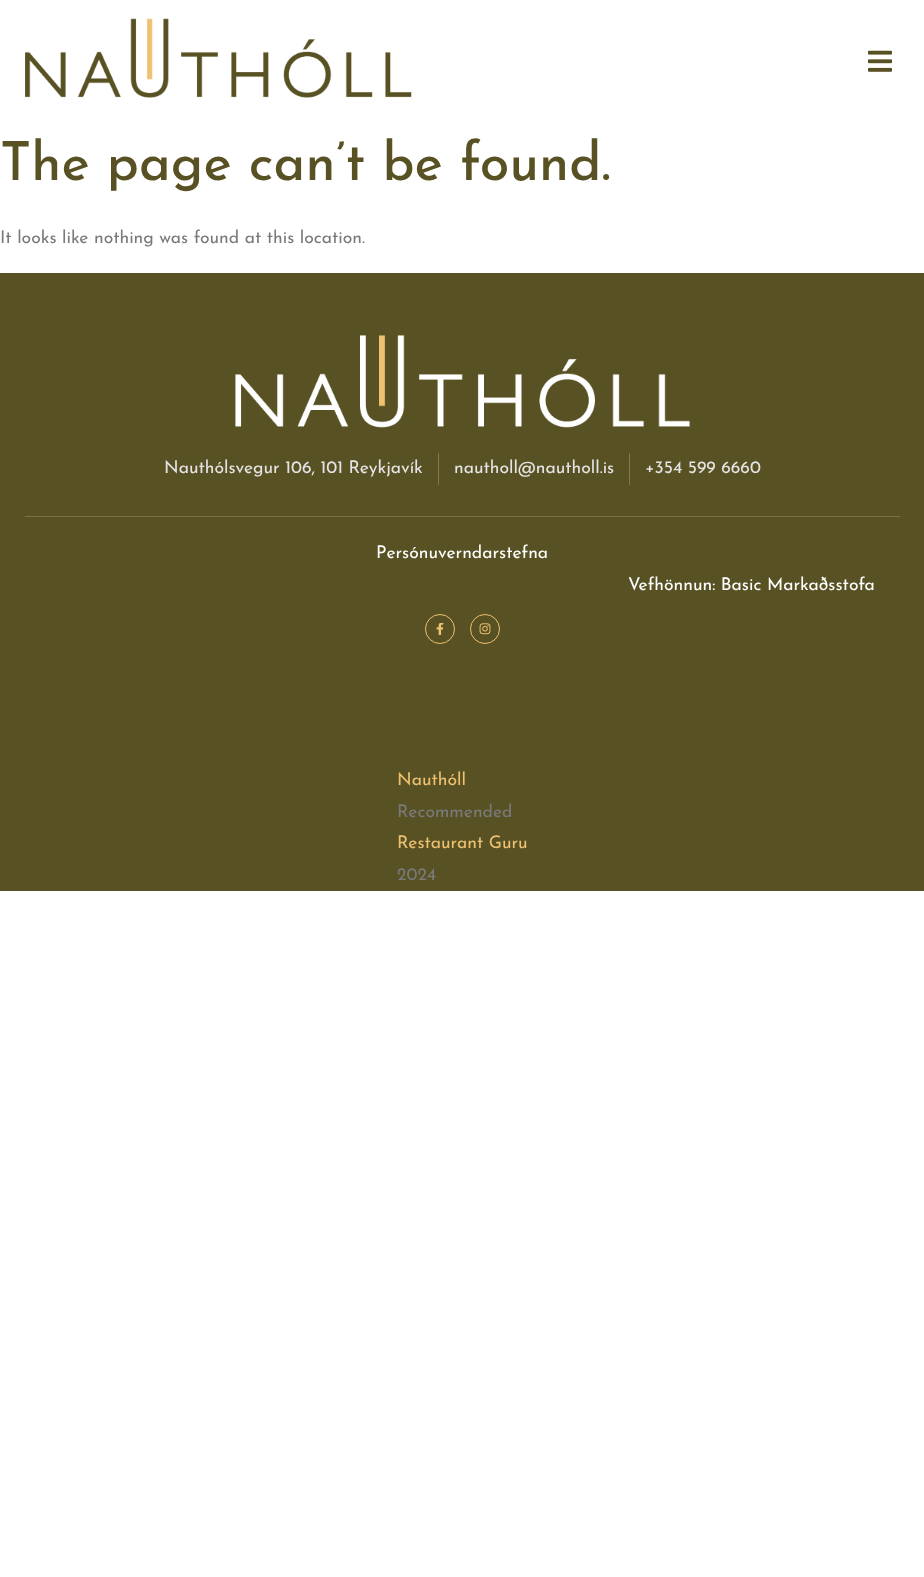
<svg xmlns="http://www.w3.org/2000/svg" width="924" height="1577">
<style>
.a{font:500 53.75px Josefin Sans;fill:#585123}
.b{font:17.5px Josefin Sans;fill:#7a7a7a}
.c{font:17.5px Josefin Sans;fill:#e4e4e4}
.d{font:17.5px Josefin Sans;fill:#fff}
.e{font:17.5px Josefin Sans;fill:#eec170}
</style>
<rect width="100%" height="100%" fill="#fff"/>
<image href="1.png" x="25" y="18" width="387" height="80"/>
<image href="2.png" x="867" y="50" width="26" height="22"/>
<path fill="#585123" d="M0 273h924v618H0z"/>
<image href="3.png" x="235" y="335" width="455" height="93"/>
<path fill="#7d7857" d="M438 453h1v32H438z"/>
<path fill="#7d7857" d="M629 453h1v32H629z"/>
<path fill="#76704b" d="M25 516h875v1H25z"/>
<circle fill="none" stroke="#eec170" cx="440" cy="629" r="14.5"/>
<image href="4.png" x="436" y="623" width="8" height="12"/>
<circle fill="none" stroke="#eec170" cx="485" cy="629" r="14.5"/>
<image href="5.png" x="479" y="623" width="12" height="12"/>
<text class="a" x="0" y="180">The page can’t be found.</text>
<text class="b" x="0" y="243">It looks like nothing was found at this location.</text>
<text class="c" x="164" y="473">Nauthólsvegur 106, 101 Reykjavík</text>
<text class="c" x="454" y="473">nautholl@nautholl.is</text>
<text class="c" x="645" y="473">+354 599 6660</text>
<text class="d" x="376" y="558">Persónuverndarstefna</text>
<text class="d" x="628" y="590">Vefhönnun: Basic Markaðsstofa</text>
<text class="e" x="397" y="785">Nauthóll</text>
<text class="b" x="397" y="817">Recommended</text>
<text class="e" x="397" y="848">Restaurant Guru</text>
<text class="b" x="397" y="880">2024</text>
</svg>
